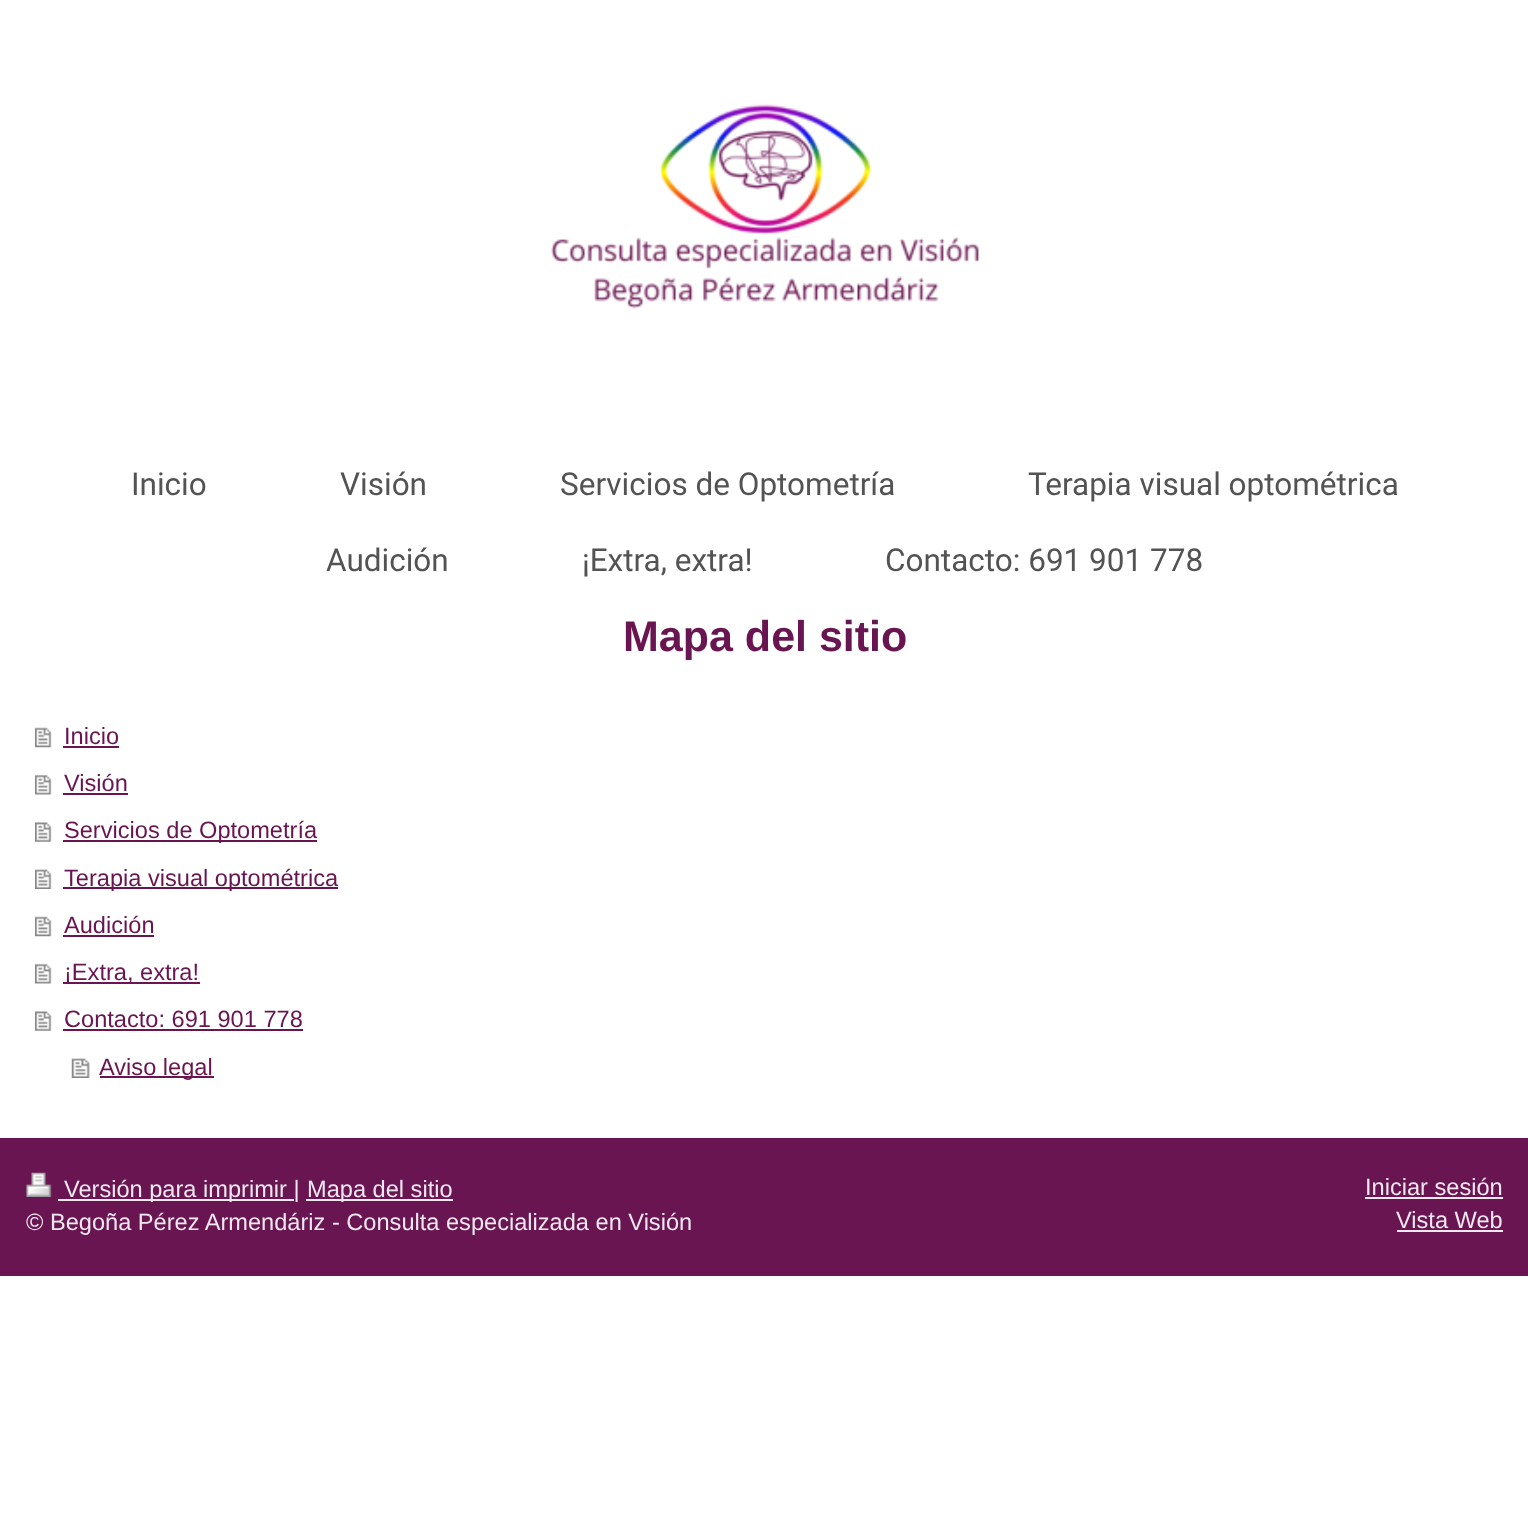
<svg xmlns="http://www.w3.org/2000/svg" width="1528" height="1514">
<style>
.a{font:31.5px Roboto;fill:#535353}
.b{font:bold 43px Liberation Sans;fill:#691551}
.c{font:23.6px Liberation Sans;fill:#691551}
.d{font:23.6px Liberation Sans;fill:#f0e8ee}
</style>
<rect width="100%" height="100%" fill="#fff"/>
<image href="1.png" x="551" y="104" width="428" height="205"/>
<image href="2.png" x="35" y="727" width="17" height="21"/>
<path fill="#691551" d="M63 746h56v2H63z"/>
<image href="3.png" x="35" y="774" width="17" height="21"/>
<path fill="#691551" d="M63 793h65v2H63z"/>
<image href="4.png" x="35" y="822" width="17" height="20"/>
<path fill="#691551" d="M63 840h254v2H63z"/>
<image href="5.png" x="35" y="869" width="17" height="20"/>
<path fill="#691551" d="M63 887h275v2H63z"/>
<image href="2.png" x="35" y="916" width="17" height="21"/>
<path fill="#691551" d="M63 935h91v2H63z"/>
<image href="3.png" x="35" y="963" width="17" height="21"/>
<path fill="#691551" d="M63 982h137v2H63z"/>
<image href="4.png" x="35" y="1011" width="17" height="20"/>
<path fill="#691551" d="M63 1029h240v2H63z"/>
<image href="6.png" x="71" y="1058" width="19" height="20"/>
<path fill="#691551" d="M100 1076h114v2H100z"/>
<path fill="#691551" d="M0 1138h1528v138H0z"/>
<image href="7.png" x="26" y="1172" width="26" height="25"/>
<path fill="#f0e8ee" d="M58 1199h236v2H58z"/>
<path fill="#f0e8ee" d="M306 1199h147v2H306z"/>
<path fill="#f0e8ee" d="M1365 1197h138v2H1365z"/>
<path fill="#f0e8ee" d="M1397 1230h106v2H1397z"/>
<text class="a" x="131" y="495">Inicio</text>
<text class="a" x="340" y="495">Visión</text>
<text class="a" x="560" y="495">Servicios de Optometría</text>
<text class="a" x="1028" y="495">Terapia visual optométrica</text>
<text class="a" x="326" y="571">Audición</text>
<text class="a" x="582" y="571">¡Extra, extra!</text>
<text class="a" x="885" y="571">Contacto: 691 901 778</text>
<text class="b" x="623" y="651">Mapa del sitio</text>
<text class="c" x="64" y="744">Inicio</text>
<text class="c" x="64" y="791">Visión</text>
<text class="c" x="64" y="838">Servicios de Optometría</text>
<text class="c" x="64" y="886">Terapia visual optométrica</text>
<text class="c" x="64" y="933">Audición</text>
<text class="c" x="64" y="980">¡Extra, extra!</text>
<text class="c" x="64" y="1027">Contacto: 691 901 778</text>
<text class="c" x="99" y="1075">Aviso legal</text>
<text class="d" x="64" y="1197">Versión para imprimir |</text>
<text class="d" x="307" y="1197">Mapa del sitio</text>
<text class="d" x="26" y="1230">© Begoña Pérez Armendáriz - Consulta especializada en Visión</text>
<text class="d" x="1365" y="1195">Iniciar sesión</text>
<text class="d" x="1396" y="1228">Vista Web</text>
</svg>
